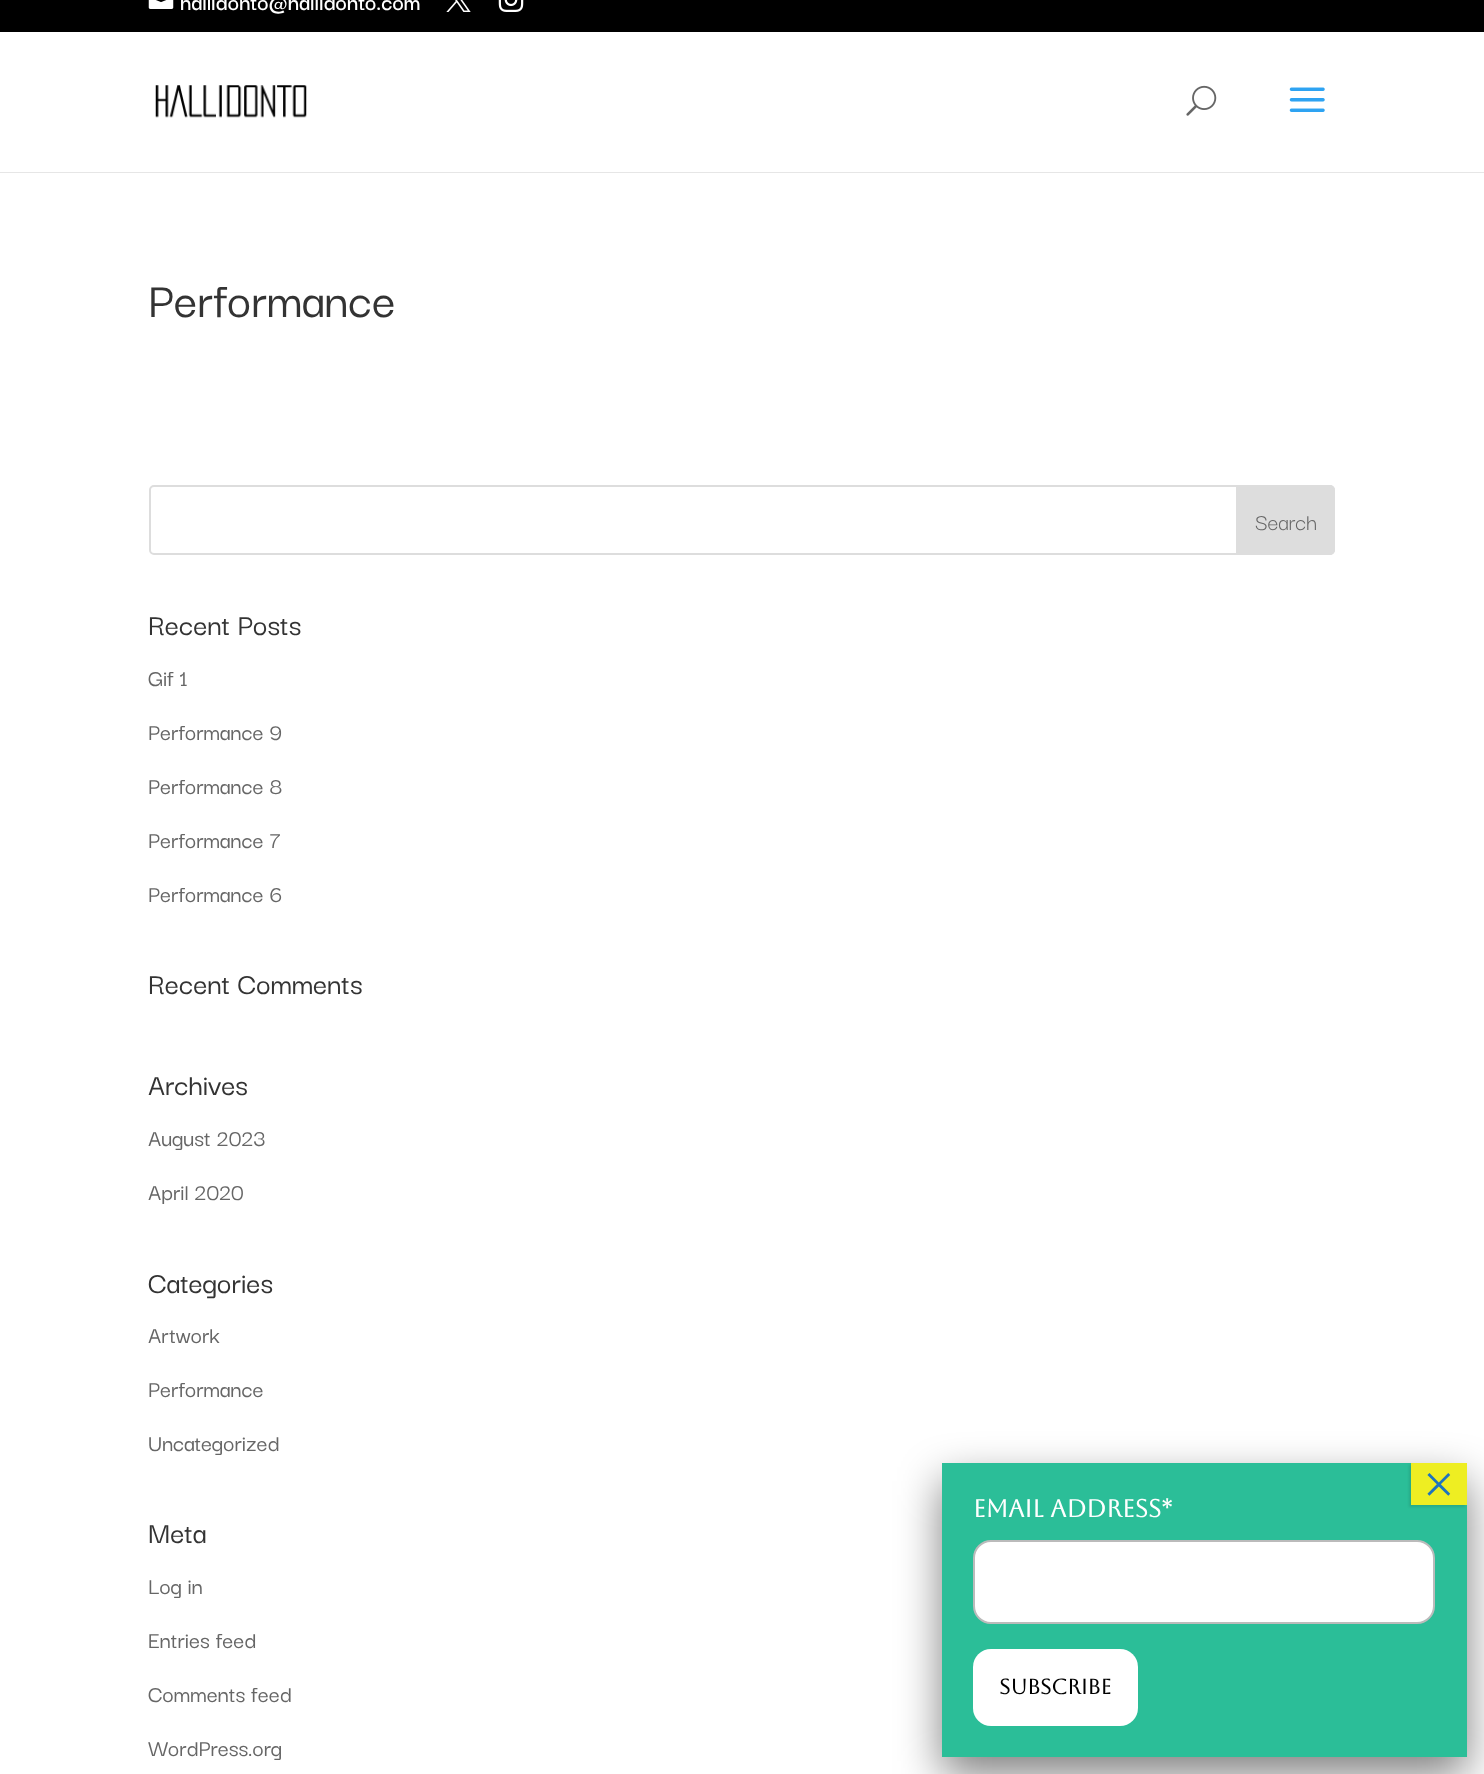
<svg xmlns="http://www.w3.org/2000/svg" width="1484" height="1774">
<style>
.a{font:600 24.5px Darker Grotesque;fill:#fff}
.b{font:300 52.5px Darker Grotesque;fill:#333}
.c{font:300 24.5px 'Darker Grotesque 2';fill:#666}
.d{font:300 31.5px Darker Grotesque;fill:#333}
.e{font:300 24.5px Darker Grotesque;fill:#666}
.f{font:56px Liberation Serif;fill:#1e73be}
.g{font:bold 24.5px Aboreto;fill:#fff}
.h{font:bold 21px Aboreto;fill:#000}
</style>
<rect width="100%" height="100%" fill="#fff"/>
<path fill="#000" d="M0 0h1484v32H0z"/>
<image href="1.png" x="148" y="0" width="26" height="9"/>
<image href="2.png" x="446" y="0" width="25" height="12"/>
<image href="3.png" x="498" y="0" width="26" height="12"/>
<path fill="#e6e6e6" d="M0 172h1484v1H0z"/>
<image href="4.png" x="155" y="85" width="152" height="33"/>
<image href="5.png" x="1186" y="85" width="31" height="31"/>
<image href="6.png" x="1289" y="87" width="36" height="25"/>
<rect fill="none" stroke="#ddd" stroke-width="2" x="150" y="486" width="1184" height="68" rx="4"/>
<path fill="#ddd" stroke="#ddd" stroke-width="2" d="M1237 486h93c2 0 4 2 4 4v60c0 2-2 4-4 4h-93z"/>
<path fill="#02020280" filter="blur(22px)" d="M942 1481h525v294H942z"/>
<path fill="#2bbe98" d="M942 1463h525v294H942z"/>
<path fill="#0202021a" filter="blur(1px)" d="M1409 1465h56v42H1409z"/>
<path fill="#ee2" d="M1411 1463h56v42H1411z"/>
<rect fill="#fff" stroke="#bbb" stroke-width="2" x="974" y="1541" width="460" height="82" rx="17"/>
<rect fill="#fff" x="973" y="1649" width="165" height="77" rx="18"/>
<text class="a" x="180" y="10">hallidonto@hallidonto.com</text>
<text class="b" x="148" y="317">Performance</text>
<text class="c" x="1255" y="530">Search</text>
<text class="d" x="148" y="635">Recent Posts</text>
<text class="e" x="148" y="686">Gif 1</text>
<text class="e" x="148" y="740">Performance 9</text>
<text class="e" x="148" y="794">Performance 8</text>
<text class="e" x="148" y="848">Performance 7</text>
<text class="e" x="148" y="902">Performance 6</text>
<text class="d" x="148" y="994">Recent Comments</text>
<text class="d" x="148" y="1095">Archives</text>
<text class="e" x="148" y="1146">August 2023</text>
<text class="e" x="148" y="1200">April 2020</text>
<text class="d" x="148" y="1293">Categories</text>
<text class="e" x="148" y="1343">Artwork</text>
<text class="e" x="148" y="1397">Performance</text>
<text class="e" x="148" y="1451">Uncategorized</text>
<text class="d" x="148" y="1543">Meta</text>
<text class="e" x="148" y="1594">Log in</text>
<text class="e" x="148" y="1648">Entries feed</text>
<text class="e" x="148" y="1702">Comments feed</text>
<text class="e" x="148" y="1756">WordPress.org</text>
<text class="f" x="1423" y="1503">×</text>
<text class="g" x="973" y="1517">Email Address*</text>
<text class="h" x="999" y="1694">Subscribe</text>
</svg>
